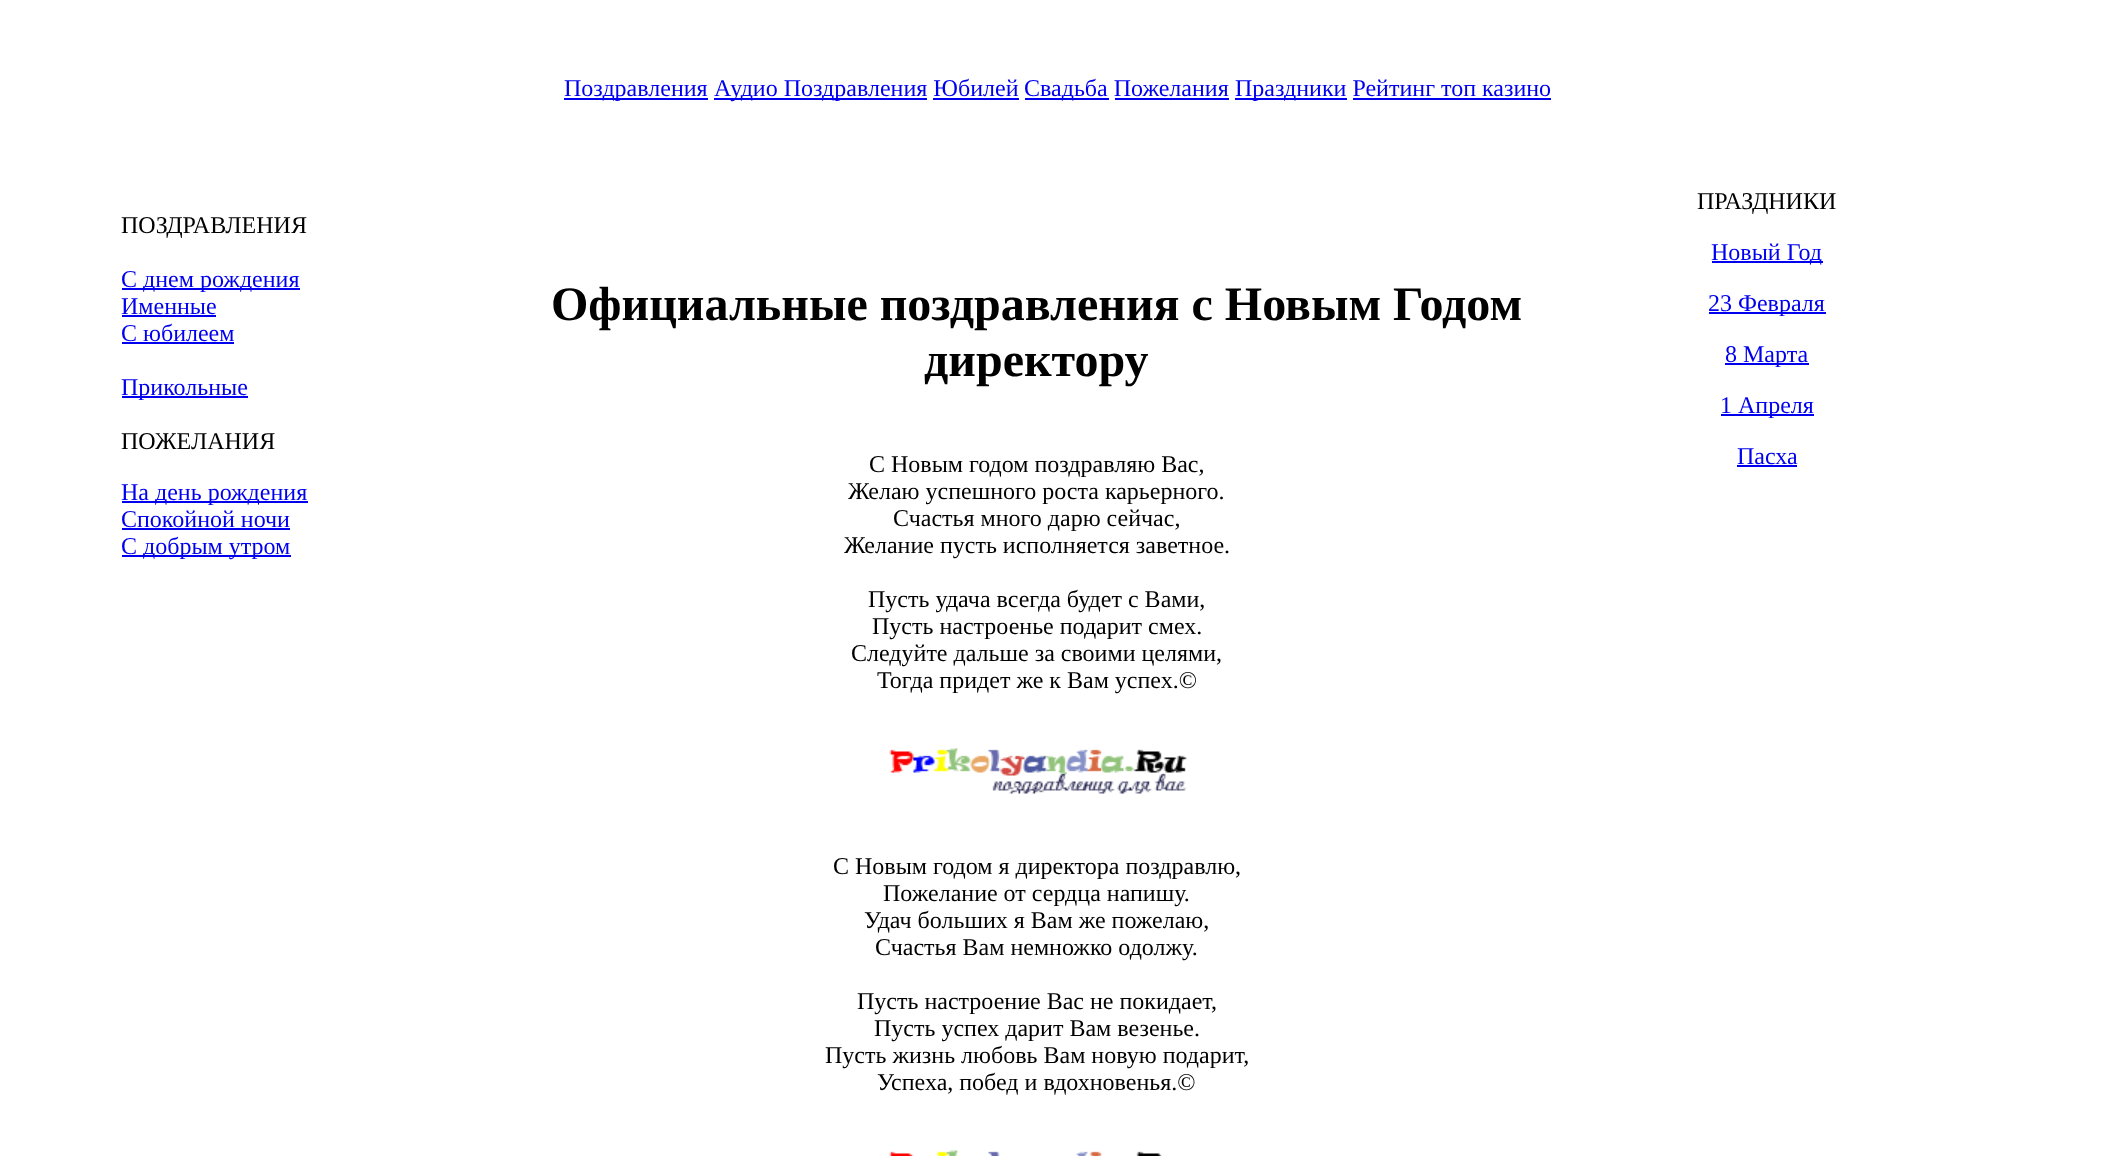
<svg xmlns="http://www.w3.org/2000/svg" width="2115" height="1156">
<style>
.a{font:24px Liberation Serif;fill:#00e}
.b{font:24px Liberation Serif;fill:#000}
.c{font:bold 48px Liberation Serif;fill:#000}
</style>
<rect width="100%" height="100%" fill="#fff"/>
<path fill="#00e" d="M564 98h144v2H564z"/>
<path fill="#00e" d="M714 98h213v2H714z"/>
<path fill="#00e" d="M1025 98h84v2H1025z"/>
<path fill="#00e" d="M1235 98h112v2H1235z"/>
<path fill="#00e" d="M933 98h86v2H933z"/>
<path fill="#00e" d="M1115 98h114v2H1115z"/>
<path fill="#00e" d="M1353 98h198v2H1353z"/>
<path fill="#00e" d="M122 288h178v2H122z"/>
<path fill="#00e" d="M122 315h94v2H122z"/>
<path fill="#00e" d="M122 342h112v2H122z"/>
<path fill="#00e" d="M122 396h126v2H122z"/>
<path fill="#00e" d="M122 501h186v2H122z"/>
<path fill="#00e" d="M122 528h168v2H122z"/>
<path fill="#00e" d="M122 555h169v2H122z"/>
<image href="1.png" x="889" y="748" width="298" height="46"/>
<image href="2.png" x="889" y="1150" width="273" height="6"/>
<path fill="#00e" d="M1712 261h111v2H1712z"/>
<path fill="#00e" d="M1709 312h117v2H1709z"/>
<path fill="#00e" d="M1725 363h84v2H1725z"/>
<path fill="#00e" d="M1721 414h93v2H1721z"/>
<path fill="#00e" d="M1737 465h60v2H1737z"/>
<text class="a" x="564" y="96">Поздравления</text>
<text class="a" x="714" y="96">Аудио Поздравления Юбилей</text>
<text class="a" x="1024" y="96">Свадьба Пожелания</text>
<text class="a" x="1235" y="96">Праздники Рейтинг топ казино</text>
<text class="b" x="121" y="233">ПОЗДРАВЛЕНИЯ</text>
<text class="a" x="121" y="287">С днем рождения</text>
<text class="a" x="121" y="314">Именные</text>
<text class="a" x="121" y="341">С юбилеем</text>
<text class="a" x="121" y="395">Прикольные</text>
<text class="b" x="121" y="449">ПОЖЕЛАНИЯ</text>
<text class="a" x="121" y="500">На день рождения</text>
<text class="a" x="121" y="527">Спокойной ночи</text>
<text class="a" x="121" y="554">С добрым утром</text>
<text class="c" x="551" y="320">Официальные поздравления с Новым Годом</text>
<text class="c" x="924" y="376">директору</text>
<text class="b" x="869" y="472">С Новым годом поздравляю Вас,</text>
<text class="b" x="848" y="499">Желаю успешного роста карьерного.</text>
<text class="b" x="893" y="526">Счастья много дарю сейчас,</text>
<text class="b" x="844" y="553">Желание пусть исполняется заветное.</text>
<text class="b" x="868" y="607">Пусть удача всегда будет с Вами,</text>
<text class="b" x="872" y="634">Пусть настроенье подарит смех.</text>
<text class="b" x="851" y="661">Следуйте дальше за своими целями,</text>
<text class="b" x="877" y="688">Тогда придет же к Вам успех.©</text>
<text class="b" x="833" y="874">С Новым годом я директора поздравлю,</text>
<text class="b" x="883" y="901">Пожелание от сердца напишу.</text>
<text class="b" x="864" y="928">Удач больших я Вам же пожелаю,</text>
<text class="b" x="875" y="955">Счастья Вам немножко одолжу.</text>
<text class="b" x="857" y="1009">Пусть настроение Вас не покидает,</text>
<text class="b" x="874" y="1036">Пусть успех дарит Вам везенье.</text>
<text class="b" x="825" y="1063">Пусть жизнь любовь Вам новую подарит,</text>
<text class="b" x="877" y="1090">Успеха, побед и вдохновенья.©</text>
<text class="b" x="1697" y="209">ПРАЗДНИКИ</text>
<text class="a" x="1711" y="260">Новый Год</text>
<text class="a" x="1708" y="311">23 Февраля</text>
<text class="a" x="1725" y="362">8 Марта</text>
<text class="a" x="1720" y="413">1 Апреля</text>
<text class="a" x="1737" y="464">Пасха</text>
</svg>
